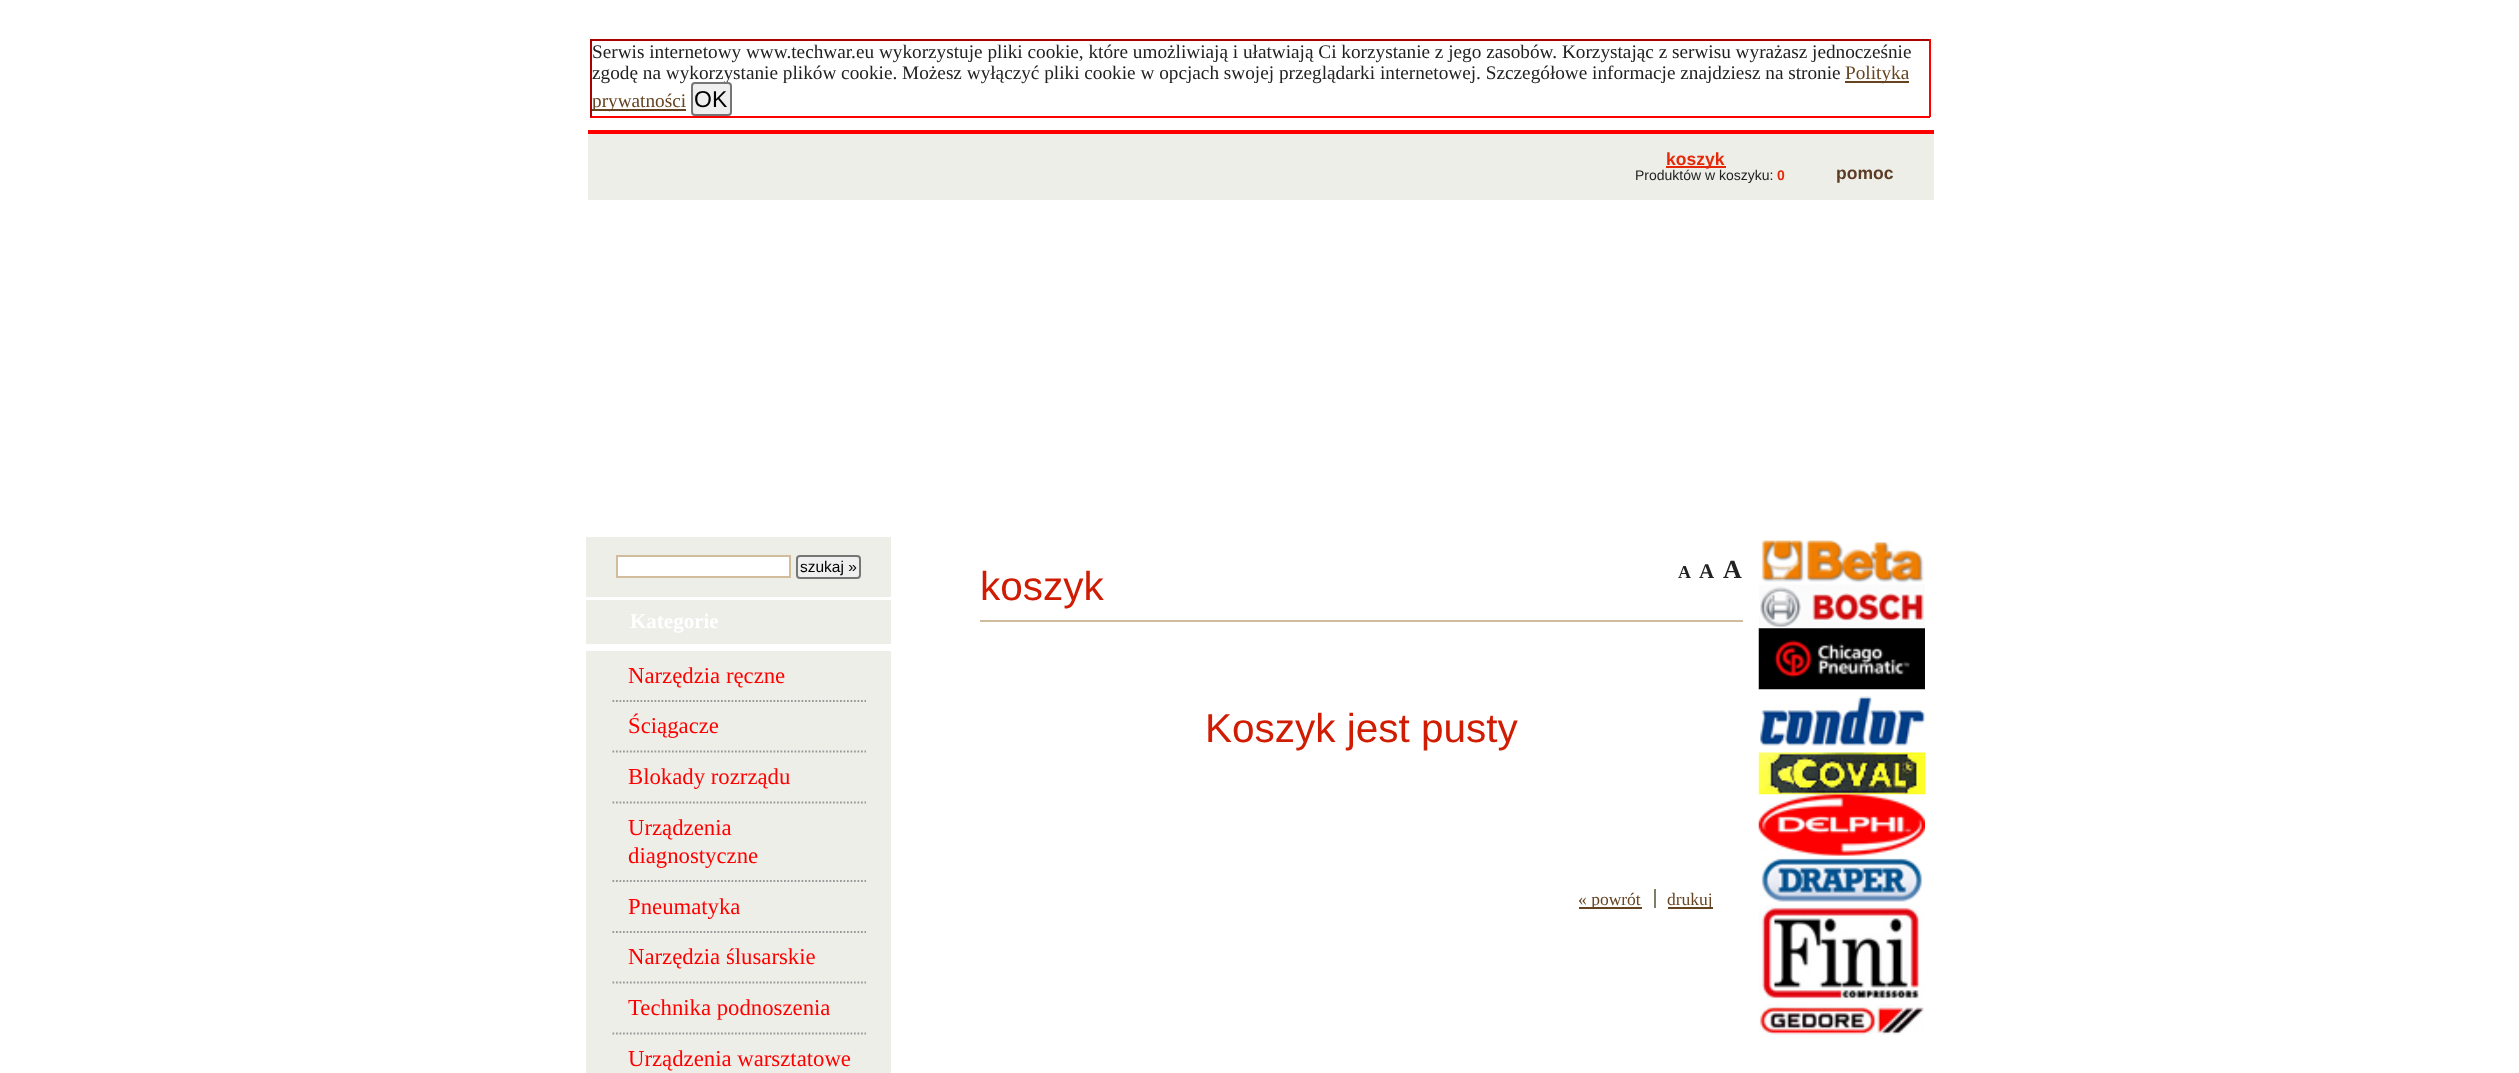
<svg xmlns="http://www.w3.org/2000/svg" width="2519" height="1073">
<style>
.a{font:19.25px Liberation Serif;fill:#222}
.b{font:19.25px Liberation Serif;fill:#642}
.c{font:23px Liberation Sans;fill:#000}
.d{font:bold 17.5px Liberation Sans;fill:#e62808}
.e{font:14px Liberation Sans;fill:#222}
.f{font:bold 14px Liberation Sans;fill:#e62808}
.g{font:bold 17.5px Liberation Sans;fill:#5c3c25}
.h{font:15.5px Liberation Sans;fill:#000}
.i{font:bold 21px Liberation Serif;fill:#fff}
.j{font:22.75px Liberation Serif;fill:#f00}
.k{font:40.5px Liberation Sans;fill:#d01c02}
.l{font:bold 18px Liberation Serif;fill:#222}
.m{font:bold 21px Liberation Serif;fill:#222}
.n{font:bold 26px Liberation Serif;fill:#222}
.o{font:17.5px Liberation Serif;fill:#642}
</style>
<rect width="100%" height="100%" fill="#fff"/>
<path fill="#a00" d="M590 39h1340v2H590z"/>
<path fill="#f00" d="M1929 39h2v78H1929z"/>
<path fill="#f00" d="M590 116h1340v2H590z"/>
<path fill="#a00" d="M590 39h2v78H590z"/>
<path fill="#642" d="M1845 81h64v2H1845z"/>
<path fill="#642" d="M592 109h94v2H592z"/>
<path fill="#eeeee9" d="M588 134h1346v66H588z"/>
<path fill="#f00" d="M588 130h1346v4H588z"/>
<path fill="#e62808" d="M1666 166h60v2H1666z"/>
<path fill="#eeeee9" d="M586 537h305v60H586z"/>
<path fill="#fff" stroke="#d1bd9d" stroke-width="2" d="M617 556h173v21H617z"/>
<rect fill="#efefef" stroke="#767676" stroke-width="2" x="797" y="556" width="63" height="22" rx="3"/>
<path fill="#eeeee9" d="M586 600h305v44H586z"/>
<path fill="#eeeee9" d="M586 651h305v422H586z"/>
<path fill="none" stroke="#999" stroke-width="1.8" stroke-dasharray="1.75 1.75" d="M612.5 701h253.5"/>
<path fill="none" stroke="#999" stroke-width="1.8" stroke-dasharray="1.75 1.75" d="M612.5 751.5h253.5"/>
<path fill="none" stroke="#999" stroke-width="1.8" stroke-dasharray="1.75 1.75" d="M612.5 802.5h253.5"/>
<path fill="none" stroke="#999" stroke-width="1.8" stroke-dasharray="1.75 1.75" d="M612.5 881h253.5"/>
<path fill="none" stroke="#999" stroke-width="1.8" stroke-dasharray="1.75 1.75" d="M612.5 932h253.5"/>
<path fill="none" stroke="#999" stroke-width="1.8" stroke-dasharray="1.75 1.75" d="M612.5 982.5h253.5"/>
<path fill="none" stroke="#999" stroke-width="1.8" stroke-dasharray="1.75 1.75" d="M612.5 1033.5h253.5"/>
<path fill="#d1bd9d" d="M980 620h763v2H980z"/>
<path fill="#642" d="M1579 907h63v2H1579z"/>
<path fill="#7f7f66" d="M1654 889h2v19H1654z"/>
<path fill="#642" d="M1668 907h45v2H1668z"/>
<image href="1.png" x="1761" y="540" width="163" height="43"/>
<image href="2.png" x="1759" y="584" width="166" height="44"/>
<image href="3.png" x="1758" y="628" width="167" height="62"/>
<image href="4.png" x="1758" y="689" width="167" height="57"/>
<image href="5.png" x="1758" y="752" width="167" height="43"/>
<image href="6.png" x="1758" y="794" width="167" height="62"/>
<image href="7.png" x="1761" y="855" width="161" height="47"/>
<image href="8.png" x="1759" y="905" width="166" height="95"/>
<image href="9.png" x="1759" y="1004" width="165" height="32"/>
<text class="a" x="592" y="58">Serwis internetowy www.techwar.eu wykorzystuje pliki cookie, które umożliwiają i ułatwiają Ci korzystanie z jego zasobów. Korzystając z serwisu wyrażasz jednocześnie</text>
<text class="a" x="592" y="79">zgodę na wykorzystanie plików cookie. Możesz wyłączyć pliki cookie w opcjach swojej przeglądarki internetowej. Szczegółowe informacje znajdziesz na stronie</text>
<text class="b" x="1845" y="79">Polityka</text>
<text class="b" x="592" y="107">prywatności</text>
<rect fill="#efefef" stroke="#767676" stroke-width="2" x="692" y="83" width="39" height="32" rx="3"/>
<text class="c" x="694" y="107">OK</text>
<text class="d" x="1666" y="165">koszyk</text>
<text class="e" x="1635" y="180">Produktów w koszyku:</text>
<text class="f" x="1777" y="180">0</text>
<text class="g" x="1836" y="179">pomoc</text>
<text class="h" x="800" y="572">szukaj »</text>
<text class="i" x="630" y="628">Kategorie</text>
<text class="j" x="628" y="683">Narzędzia ręczne</text>
<text class="j" x="628" y="733">Ściągacze</text>
<text class="j" x="628" y="784">Blokady rozrządu</text>
<text class="j" x="628" y="835">Urządzenia</text>
<text class="j" x="628" y="863">diagnostyczne</text>
<text class="j" x="628" y="914">Pneumatyka</text>
<text class="j" x="628" y="964">Narzędzia ślusarskie</text>
<text class="j" x="628" y="1015">Technika podnoszenia</text>
<text class="j" x="628" y="1066">Urządzenia warsztatowe</text>
<text class="k" x="980" y="600">koszyk</text>
<text class="l" x="1678" y="578">A</text>
<text class="m" x="1699" y="578">A</text>
<text class="n" x="1723" y="578">A</text>
<text class="k" x="1205" y="742">Koszyk jest pusty</text>
<text class="o" x="1578" y="905">« powrót</text>
<text class="o" x="1667" y="905">drukuj</text>
</svg>
